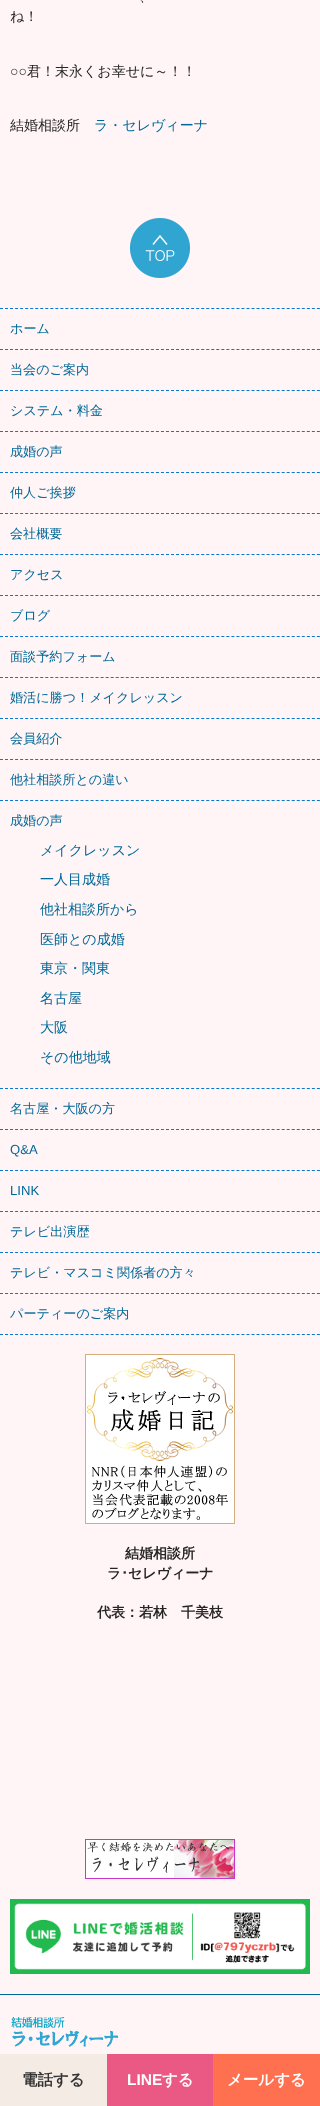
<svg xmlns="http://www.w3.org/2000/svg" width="320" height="2106">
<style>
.a{font:500 14px WenQuanYi Zen Hei;fill:#252525}
.b{font:14px Liberation Sans;fill:#252525}
.c{font:500 14px WenQuanYi Zen Hei;fill:#006898}
.d{font:500 13.1px WenQuanYi Zen Hei;fill:#006898}
.e{font:13.1px Liberation Sans;fill:#006898}
.f{font:bold 14px WenQuanYi Zen Hei;fill:#252525}
.g{font:bold 14px IPAPGothic;fill:#252525}
.h{font:bold 15.5px WenQuanYi Zen Hei;fill:#333}
.i{font:bold 15.5px Liberation Sans;fill:#fff}
.j{font:bold 15.5px WenQuanYi Zen Hei;fill:#fff}
</style>
<rect width="100%" height="100%" fill="#fff4f6"/>
<image href="1.png" x="130" y="218" width="60" height="60"/>
<path fill="none" stroke="#0778cc" stroke-dasharray="3 2.03" d="M0 308.5h320"/>
<path fill="none" stroke="#0778cc" stroke-dasharray="3 2.03" d="M0 349.5h320"/>
<path fill="none" stroke="#0778cc" stroke-dasharray="3 2.03" d="M0 390.5h320"/>
<path fill="none" stroke="#0778cc" stroke-dasharray="3 2.03" d="M0 431.5h320"/>
<path fill="none" stroke="#0778cc" stroke-dasharray="3 2.03" d="M0 472.5h320"/>
<path fill="none" stroke="#0778cc" stroke-dasharray="3 2.03" d="M0 513.5h320"/>
<path fill="none" stroke="#0778cc" stroke-dasharray="3 2.03" d="M0 554.5h320"/>
<path fill="none" stroke="#0778cc" stroke-dasharray="3 2.03" d="M0 595.5h320"/>
<path fill="none" stroke="#0778cc" stroke-dasharray="3 2.03" d="M0 636.5h320"/>
<path fill="none" stroke="#0778cc" stroke-dasharray="3 2.03" d="M0 677.5h320"/>
<path fill="none" stroke="#0778cc" stroke-dasharray="3 2.03" d="M0 718.5h320"/>
<path fill="none" stroke="#0778cc" stroke-dasharray="3 2.03" d="M0 759.5h320"/>
<path fill="none" stroke="#0778cc" stroke-dasharray="3 2.03" d="M0 800.5h320"/>
<path fill="none" stroke="#0778cc" stroke-dasharray="3 2.03" d="M0 1088.5h320"/>
<path fill="none" stroke="#0778cc" stroke-dasharray="3 2.03" d="M0 1129.5h320"/>
<path fill="none" stroke="#0778cc" stroke-dasharray="3 2.03" d="M0 1170.5h320"/>
<path fill="none" stroke="#0778cc" stroke-dasharray="3 2.03" d="M0 1211.5h320"/>
<path fill="none" stroke="#0778cc" stroke-dasharray="3 2.03" d="M0 1252.5h320"/>
<path fill="none" stroke="#0778cc" stroke-dasharray="3 2.03" d="M0 1293.5h320"/>
<path fill="none" stroke="#0778cc" stroke-dasharray="3 2.03" d="M0 1334.5h320"/>
<image href="2.png" x="85" y="1354" width="150" height="170"/>
<image href="3.png" x="85" y="1839" width="150" height="40"/>
<image href="4.png" x="10" y="1899" width="300" height="75"/>
<path fill="#006898" d="M0 1994h320v1H0z"/>
<image href="5.png" x="11" y="2017" width="108" height="30"/>
<path fill="#f3ebe4" d="M0 2054h107v52H0z"/>
<path fill="#e95983" d="M107 2054h106v52H107z"/>
<path fill="#ff7051" d="M213 2054h107v52H213z"/>
<text class="a" x="139" y="1">、</text>
<text class="a" x="10" y="21">ね！</text>
<text class="b" x="10" y="76">○○</text>
<text class="a" x="27" y="76">君！末永くお幸せに～！！</text>
<text class="a" x="10" y="130">結婚相談所</text>
<text class="c" x="94" y="130">ラ・セレヴィーナ</text>
<text class="d" x="10" y="333">ホーム</text>
<text class="d" x="10" y="374">当会のご案内</text>
<text class="d" x="10" y="415">システム・料金</text>
<text class="d" x="10" y="456">成婚の声</text>
<text class="d" x="10" y="497">仲人ご挨拶</text>
<text class="d" x="10" y="538">会社概要</text>
<text class="d" x="10" y="579">アクセス</text>
<text class="d" x="10" y="620">ブログ</text>
<text class="d" x="10" y="661">面談予約フォーム</text>
<text class="d" x="10" y="702">婚活に勝つ！メイクレッスン</text>
<text class="d" x="10" y="743">会員紹介</text>
<text class="d" x="10" y="784">他社相談所との違い</text>
<text class="d" x="10" y="825">成婚の声</text>
<text class="c" x="40" y="855">メイクレッスン</text>
<text class="c" x="40" y="884">一人目成婚</text>
<text class="c" x="40" y="914">他社相談所から</text>
<text class="c" x="40" y="944">医師との成婚</text>
<text class="c" x="40" y="973">東京・関東</text>
<text class="c" x="40" y="1003">名古屋</text>
<text class="c" x="40" y="1032">大阪</text>
<text class="c" x="40" y="1062">その他地域</text>
<text class="d" x="10" y="1113">名古屋・大阪の方</text>
<text class="e" x="10" y="1154">Q&amp;A</text>
<text class="e" x="10" y="1195">LINK</text>
<text class="d" x="10" y="1236">テレビ出演歴</text>
<text class="d" x="10" y="1277">テレビ・マスコミ関係者の方々</text>
<text class="d" x="10" y="1318">パーティーのご案内</text>
<text class="f" x="125" y="1558">結婚相談所</text>
<text class="f" x="107" y="1578">ラ</text>
<text class="g" x="121" y="1578">･</text>
<text class="f" x="128" y="1578">セレヴィーナ</text>
<text class="f" x="97" y="1617">代表：若林　千美枝</text>
<text class="h" x="22" y="2085">電話する</text>
<text class="i" x="127" y="2085">LINE</text>
<text class="j" x="162" y="2085">する</text>
<text class="j" x="227" y="2085">メールする</text>
</svg>
